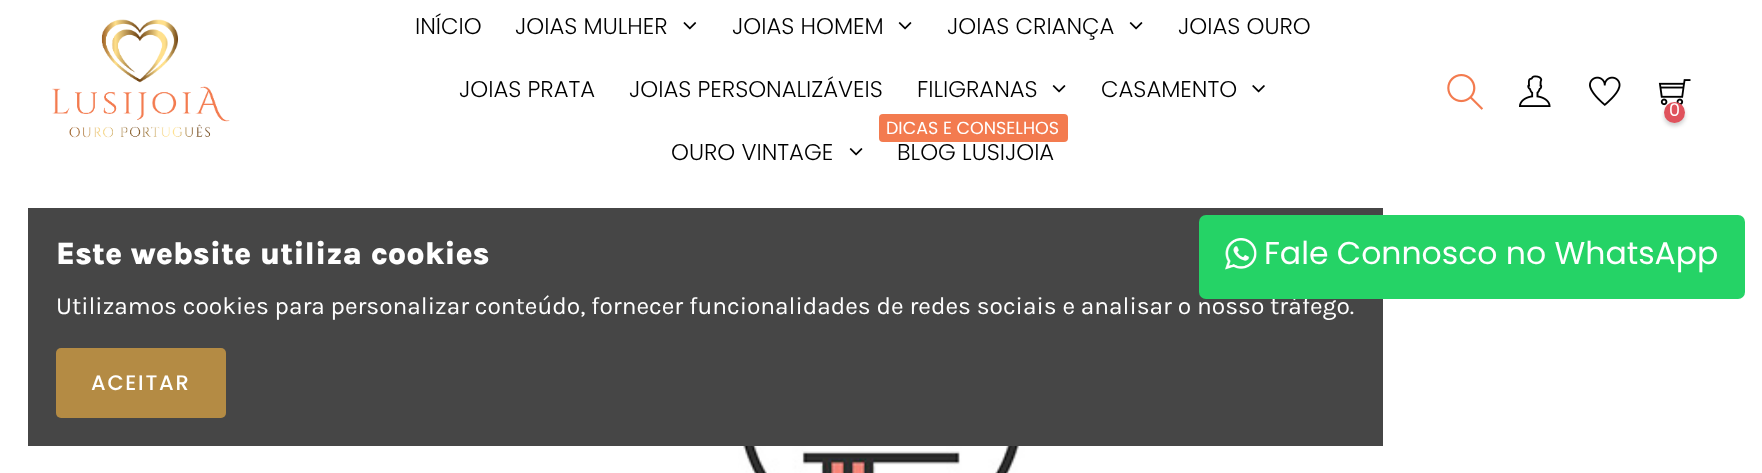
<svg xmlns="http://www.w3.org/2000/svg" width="1762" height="473">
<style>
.a{font:300 22.75px Poppins;fill:#000}
.b{font:17.5px Poppins;fill:#fff}
.c{font:800 31.5px Karla;fill:#fff}
.d{font:24.5px Karla;fill:#fff}
.e{font:500 21px Poppins;letter-spacing:1.75px;fill:#fff}
.f{font:31.5px Poppins;fill:#fff}
</style>
<rect width="100%" height="100%" fill="#fff"/>
<image href="1.png" x="52" y="19" width="178" height="119"/>
<image href="2.png" x="683" y="22" width="14" height="8"/>
<image href="3.png" x="898" y="22" width="14" height="8"/>
<image href="3.png" x="1129" y="22" width="14" height="8"/>
<image href="3.png" x="1052" y="85" width="14" height="8"/>
<image href="4.png" x="1252" y="85" width="13" height="8"/>
<image href="3.png" x="849" y="148" width="14" height="8"/>
<rect fill="#f37b4f" x="879" y="114" width="189" height="28" rx="4"/>
<image href="5.png" x="1447" y="74" width="36" height="36"/>
<image href="6.png" x="1519" y="75" width="32" height="32"/>
<image href="7.png" x="1589" y="76" width="32" height="30"/>
<image href="8.png" x="1658" y="79" width="33" height="27"/>
<rect fill="#00000033" filter="blur(2px)" x="1664" y="105" width="21" height="21" rx="10.5"/>
<circle fill="#e0525c" cx="1674.5" cy="112.5" r="10.5"/>
<image href="9.png" x="738" y="446" width="287" height="27"/>
<path fill="#464646" d="M28 208h1355v238H28z"/>
<rect fill="#b48b44" x="56" y="348" width="170" height="70" rx="5"/>
<text class="a" x="415" y="34">INÍCIO</text>
<text class="a" x="515" y="34">JOIAS MULHER</text>
<text class="a" x="732" y="34">JOIAS HOMEM</text>
<text class="a" x="947" y="34">JOIAS CRIANÇA</text>
<text class="a" x="1178" y="34">JOIAS OURO</text>
<text class="a" x="459" y="97">JOIAS PRATA</text>
<text class="a" x="629" y="97">JOIAS PERSONALIZÁVEIS</text>
<text class="a" x="917" y="97">FILIGRANAS</text>
<text class="a" x="1101" y="97">CASAMENTO</text>
<text class="a" x="671" y="160">OURO VINTAGE</text>
<text class="b" x="886" y="134">DICAS E CONSELHOS</text>
<text class="a" x="897" y="160">BLOG LUSIJOIA</text>
<text class="b" x="1669" y="116">0</text>
<text class="c" x="56" y="264">Este website utiliza cookies</text>
<text class="d" x="56" y="314">Utilizamos cookies para personalizar conteúdo, fornecer funcionalidades de redes sociais e analisar o nosso tráfego.</text>
<text class="e" x="91" y="390">ACEITAR</text>
<rect fill="#25d366" x="1199" y="215" width="546" height="84" rx="7"/>
<image href="10.png" x="1225" y="238" width="32" height="32"/>
<text class="f" x="1264" y="264">Fale Connosco no WhatsApp</text>
</svg>
